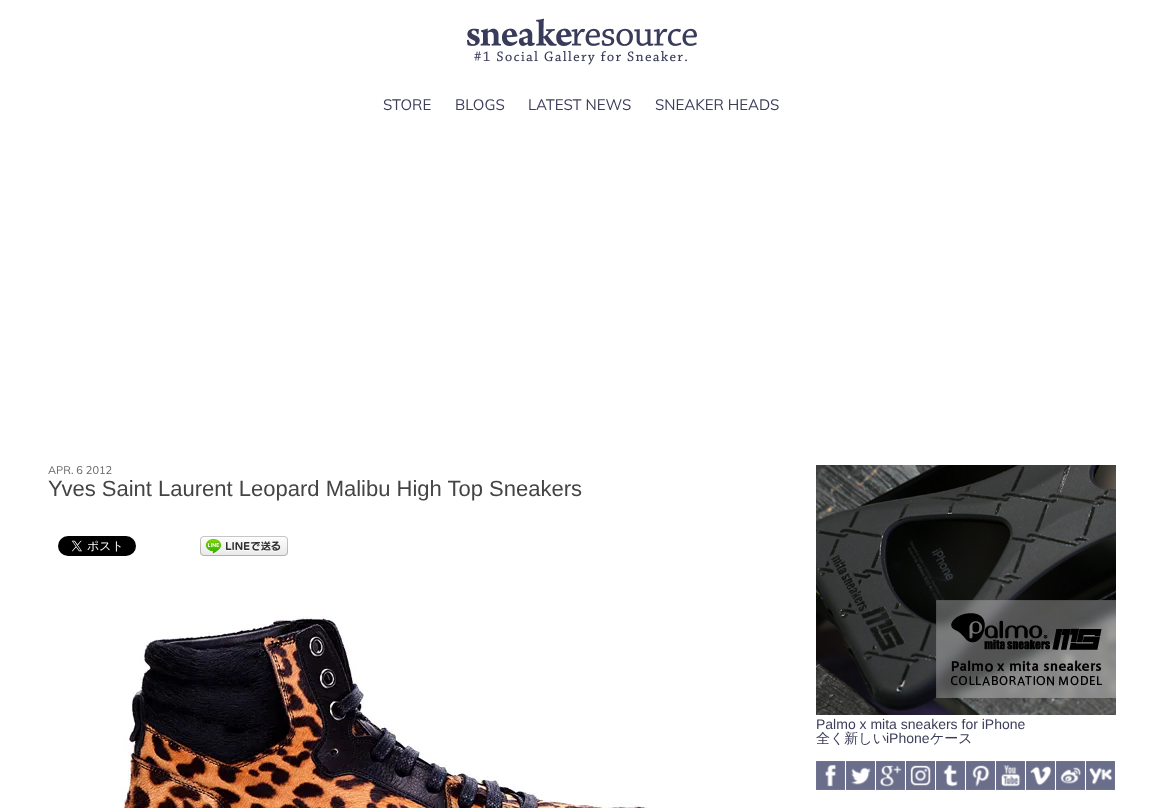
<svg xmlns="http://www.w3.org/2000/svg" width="1163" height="808">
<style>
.a{font:15px Muli;fill:#3c3d59}
.b{font:11px Muli;fill:#666}
.c{font:22px Liberation Sans;fill:#444}
.d{font:14px Liberation Sans;fill:#3c3d59}
.e{font:500 14px WenQuanYi Zen Hei;fill:#3c3d59}
</style>
<rect width="100%" height="100%" fill="#fff"/>
<image href="1.png" x="467" y="18" width="230" height="47"/>
<image href="2.png" x="58" y="536" width="78" height="20"/>
<image href="3.png" x="200" y="536" width="88" height="20"/>
<image href="4.png" x="120" y="616" width="531" height="192"/>
<image href="5.png" x="816" y="465" width="300" height="250"/>
<image href="6.png" x="816" y="761" width="29" height="29"/>
<image href="7.png" x="846" y="761" width="29" height="29"/>
<image href="8.png" x="876" y="761" width="29" height="29"/>
<image href="9.png" x="906" y="761" width="29" height="29"/>
<image href="10.png" x="936" y="761" width="29" height="29"/>
<image href="11.png" x="966" y="761" width="29" height="29"/>
<image href="12.png" x="996" y="761" width="29" height="29"/>
<image href="13.png" x="1026" y="761" width="29" height="29"/>
<image href="14.png" x="1056" y="761" width="29" height="29"/>
<image href="15.png" x="1086" y="761" width="29" height="29"/>
<text class="a" x="383" y="110">STORE</text>
<text class="a" x="455" y="110">BLOGS</text>
<text class="a" x="528" y="110">LATEST NEWS</text>
<text class="a" x="655" y="110">SNEAKER HEADS</text>
<text class="b" x="48" y="474">APR. 6 2012</text>
<text class="c" x="48" y="496">Yves Saint Laurent Leopard Malibu High Top Sneakers</text>
<text class="d" x="816" y="729">Palmo x mita sneakers for iPhone</text>
<text class="e" x="816" y="743">全く新しい</text>
<text class="d" x="886" y="743">iPhone</text>
<text class="e" x="930" y="743">ケース</text>
</svg>
